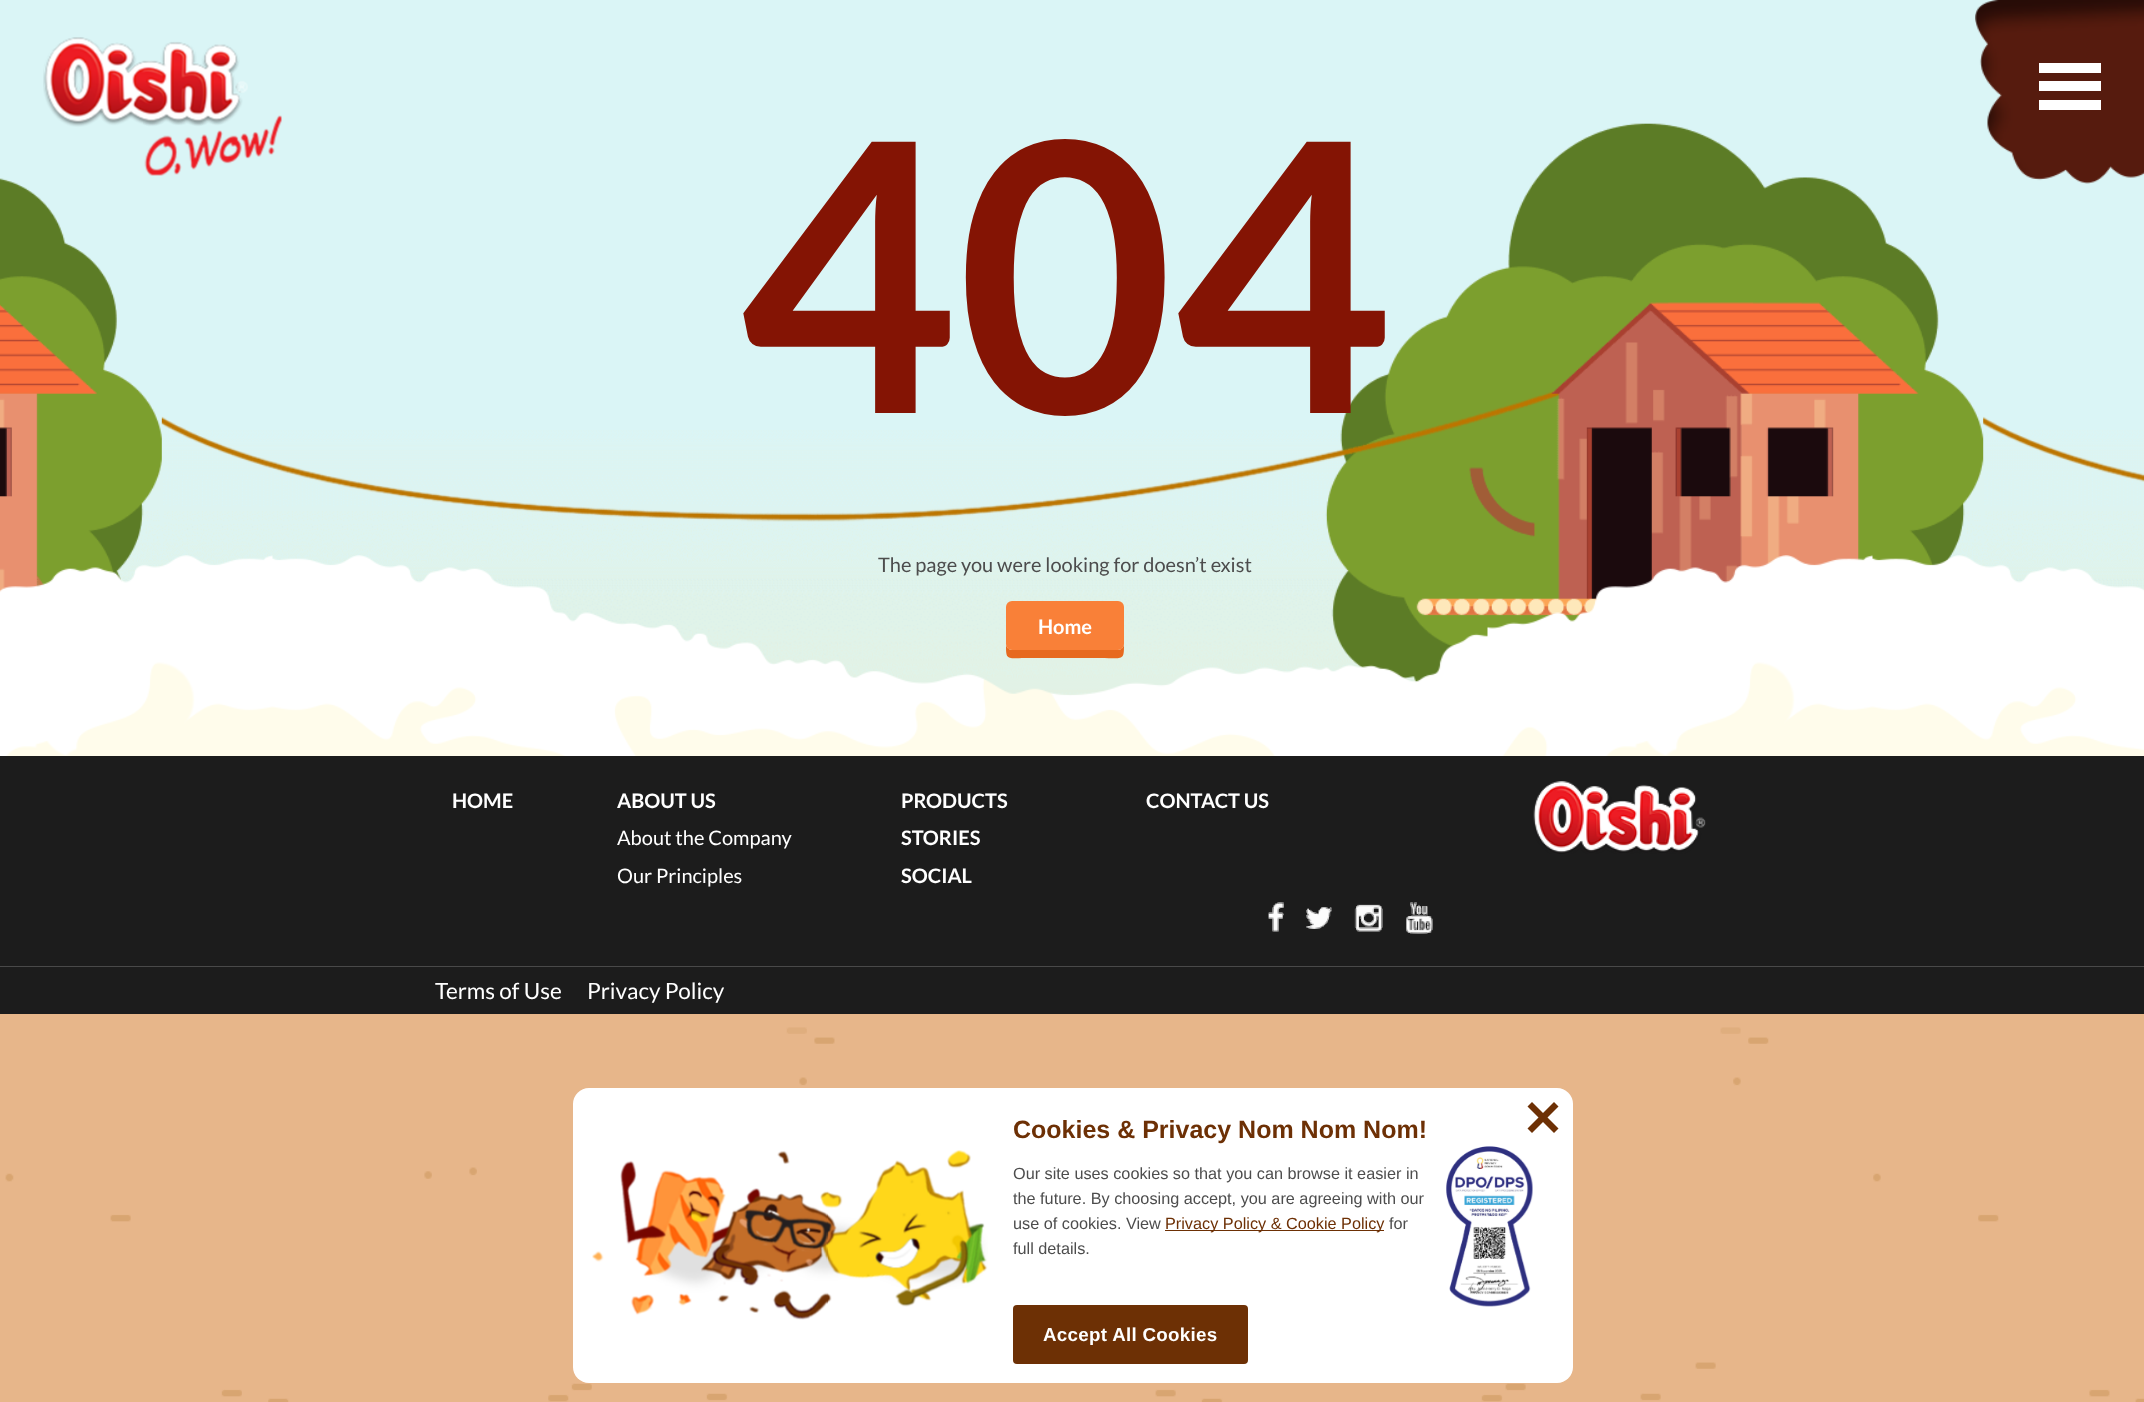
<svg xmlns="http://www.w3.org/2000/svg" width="2144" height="1402">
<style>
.a{font:bold 375px Lato;fill:#841404}
.b{font:20px Lato;fill:#4d4d4d}
.c{font:bold 20px Lato;fill:#fff}
.d{font:20px Lato;fill:#fff}
.e{font:22.5px Lato;fill:#fff}
.f{font:bold 25px Liberation Sans;fill:#6d3005}
.g{font:16.25px Liberation Sans;fill:#4d4d4d}
.h{font:16.25px Liberation Sans;fill:#6d3005}
.i{font:bold 18.75px Liberation Sans;letter-spacing:0.3px;fill:#fff}
</style>
<rect width="100%" height="100%" fill="#e7b68a"/>
<image href="1.png" x="5" y="1027" width="2139" height="375"/>
<image href="5.png" x="0" y="0" width="2144" height="756"/>
<image href="2.png" x="43" y="37" width="205" height="102"/>
<image href="3.png" x="143" y="115" width="139" height="61"/>
<image href="4.png" x="1975" y="0" width="169" height="184"/>
<path fill="#fff" d="M2039 81h62v10H2039z"/>
<path fill="#fff" d="M2039 63h62v10H2039z"/>
<path fill="#fff" d="M2039 100h62v10H2039z"/>
<path fill="#e7691f" d="M1006 613v27c0 22-1 18 24 18h70c25 0 24 4 24-18v-27v31c0 3-3 6-6 6h-106c-3 0-6-3-6-6z"/>
<rect fill="#f98038" x="1006" y="601" width="118" height="49" rx="6"/>
<path fill="#1c1c1c" d="M0 756h2144v258H0z"/>
<image href="6.png" x="1533" y="781" width="173" height="73"/>
<image href="7.png" x="1268" y="902" width="16" height="30"/>
<image href="8.png" x="1306" y="907" width="26" height="22"/>
<image href="9.png" x="1354" y="904" width="29" height="28"/>
<image href="10.png" x="1406" y="902" width="27" height="32"/>
<path fill="#494949" d="M0 966h2144v1H0z"/>
<rect fill="#fff" x="573" y="1088" width="1000" height="295" rx="16"/>
<image href="11.png" x="592" y="1150" width="396" height="170"/>
<path fill="#6d3005" d="M1165 1230h219v1H1165z"/>
<image href="12.png" x="1446" y="1146" width="87" height="161"/>
<path fill="#6d3005" d="M1554 1102l4.5 4.5l-26.5 26.5l-4.5-4.5z"/>
<path fill="#6d3005" d="M1527.5 1106.5l4.5-4.5l26.5 26.5l-4.5 4.5z"/>
<rect fill="#6d3005" x="1013" y="1305" width="235" height="59" rx="4"/>
<text class="a" x="739" y="413">404</text>
<text class="b" x="878" y="572">The page you were looking for doesn’t exist</text>
<text class="c" x="1038" y="634">Home</text>
<text class="c" x="452" y="808">HOME</text>
<text class="c" x="617" y="808">ABOUT US</text>
<text class="d" x="617" y="845">About the Company</text>
<text class="d" x="617" y="883">Our Principles</text>
<text class="c" x="901" y="808">PRODUCTS</text>
<text class="c" x="901" y="845">STORIES</text>
<text class="c" x="901" y="883">SOCIAL</text>
<text class="c" x="1146" y="808">CONTACT US</text>
<text class="e" x="435" y="999">Terms of Use</text>
<text class="e" x="587" y="999">Privacy Policy</text>
<text class="f" x="1013" y="1138">Cookies &amp; Privacy Nom Nom Nom!</text>
<text class="g" x="1013" y="1179">Our site uses cookies so that you can browse it easier in</text>
<text class="g" x="1013" y="1204">the future. By choosing accept, you are agreeing with our</text>
<text class="g" x="1013" y="1229">use of cookies. View</text>
<text class="h" x="1165" y="1229">Privacy Policy &amp; Cookie Policy</text>
<text class="g" x="1389" y="1229">for</text>
<text class="g" x="1013" y="1254">full details.</text>
<text class="i" x="1043" y="1341">Accept All Cookies</text>
</svg>
